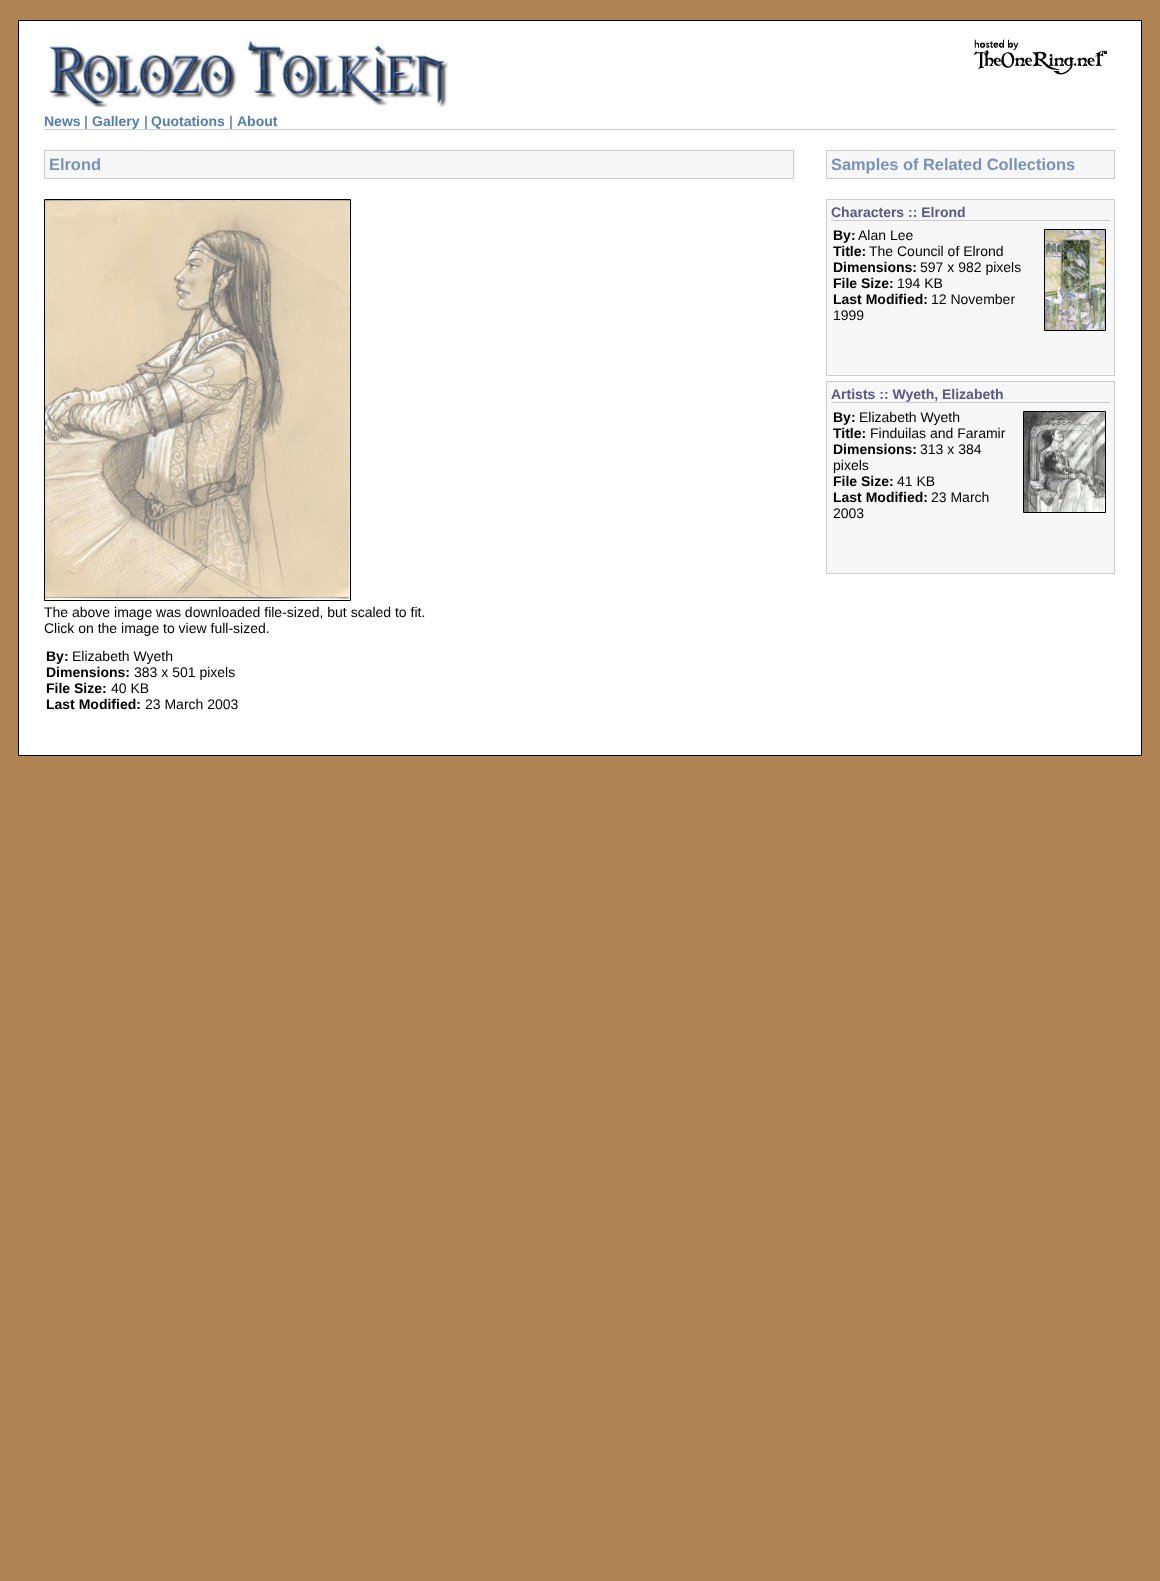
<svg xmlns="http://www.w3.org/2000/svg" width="1160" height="1581">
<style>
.a{font:bold 14px Liberation Sans;fill:#537eb0}
.b{font:bold 14px Liberation Sans;fill:#7792bc}
.c{font:bold 16.4px Liberation Sans;fill:#7792bc}
.d{font:14px Liberation Sans;fill:#000}
.e{font:bold 14px Liberation Sans;fill:#000}
.f{font:bold 14px Liberation Sans;fill:#595983}
</style>
<rect width="100%" height="100%" fill="#b08553"/>
<path fill="#fff" stroke="#000" d="M18.5 20.5h1123v735H18.5z"/>
<image href="1.png" x="49" y="40" width="399" height="67"/>
<image href="2.png" x="973" y="39" width="134" height="36"/>
<path fill="#ccc" d="M44 129h1072v1H44z"/>
<path fill="#f7f7f7" stroke="#ccc" d="M44.5 150.5h749v28H44.5z"/>
<path fill="none" stroke="#000" d="M44.5 199.5h306v401H44.5z"/>
<image href="3.png" x="45" y="200" width="305" height="400"/>
<path fill="#f7f7f7" stroke="#ccc" d="M826.5 150.5h288v28H826.5z"/>
<path fill="#f7f7f7" stroke="#ccc" d="M826.5 199.5h288v176H826.5z"/>
<path fill="#ccc" d="M831 220h279v1H831z"/>
<path fill="none" stroke="#000" d="M1044.5 229.5h61v101H1044.5z"/>
<image href="4.png" x="1045" y="230" width="60" height="100"/>
<path fill="#f7f7f7" stroke="#ccc" d="M826.5 381.5h288v192H826.5z"/>
<path fill="#ccc" d="M831 402h279v1H831z"/>
<path fill="none" stroke="#000" d="M1023.5 411.5h82v101H1023.5z"/>
<image href="5.png" x="1024" y="412" width="81" height="100"/>
<text class="a" x="44" y="126">News</text>
<text class="b" x="84" y="126">|</text>
<text class="a" x="92" y="126">Gallery</text>
<text class="b" x="144" y="126">|</text>
<text class="a" x="151" y="126">Quotations</text>
<text class="b" x="229" y="126">|</text>
<text class="a" x="237" y="126">About</text>
<text class="c" x="49" y="170">Elrond</text>
<text class="d" x="44" y="617">The above image was downloaded file-sized, but scaled to fit.</text>
<text class="d" x="44" y="633">Click on the image to view full-sized.</text>
<text class="e" x="46" y="661">By:</text>
<text class="d" x="72" y="661">Elizabeth Wyeth</text>
<text class="e" x="46" y="677">Dimensions:</text>
<text class="d" x="134" y="677">383 x 501 pixels</text>
<text class="e" x="46" y="693">File Size:</text>
<text class="d" x="111" y="693">40 KB</text>
<text class="e" x="46" y="709">Last Modified:</text>
<text class="d" x="145" y="709">23 March 2003</text>
<text class="c" x="831" y="170">Samples of Related Collections</text>
<text class="f" x="831" y="217">Characters :: Elrond</text>
<text class="e" x="833" y="240">By:</text>
<text class="d" x="858" y="240">Alan Lee</text>
<text class="e" x="833" y="256">Title:</text>
<text class="d" x="869" y="256">The Council of Elrond</text>
<text class="e" x="833" y="272">Dimensions:</text>
<text class="d" x="920" y="272">597 x 982 pixels</text>
<text class="e" x="833" y="288">File Size:</text>
<text class="d" x="897" y="288">194 KB</text>
<text class="e" x="833" y="304">Last Modified:</text>
<text class="d" x="931" y="304">12 November</text>
<text class="d" x="833" y="320">1999</text>
<text class="f" x="831" y="399">Artists :: Wyeth, Elizabeth</text>
<text class="e" x="833" y="422">By:</text>
<text class="d" x="859" y="422">Elizabeth Wyeth</text>
<text class="e" x="833" y="438">Title:</text>
<text class="d" x="870" y="438">Finduilas and Faramir</text>
<text class="e" x="833" y="454">Dimensions:</text>
<text class="d" x="920" y="454">313 x 384</text>
<text class="d" x="833" y="470">pixels</text>
<text class="e" x="833" y="486">File Size:</text>
<text class="d" x="897" y="486">41 KB</text>
<text class="e" x="833" y="502">Last Modified:</text>
<text class="d" x="931" y="502">23 March</text>
<text class="d" x="833" y="518">2003</text>
</svg>
